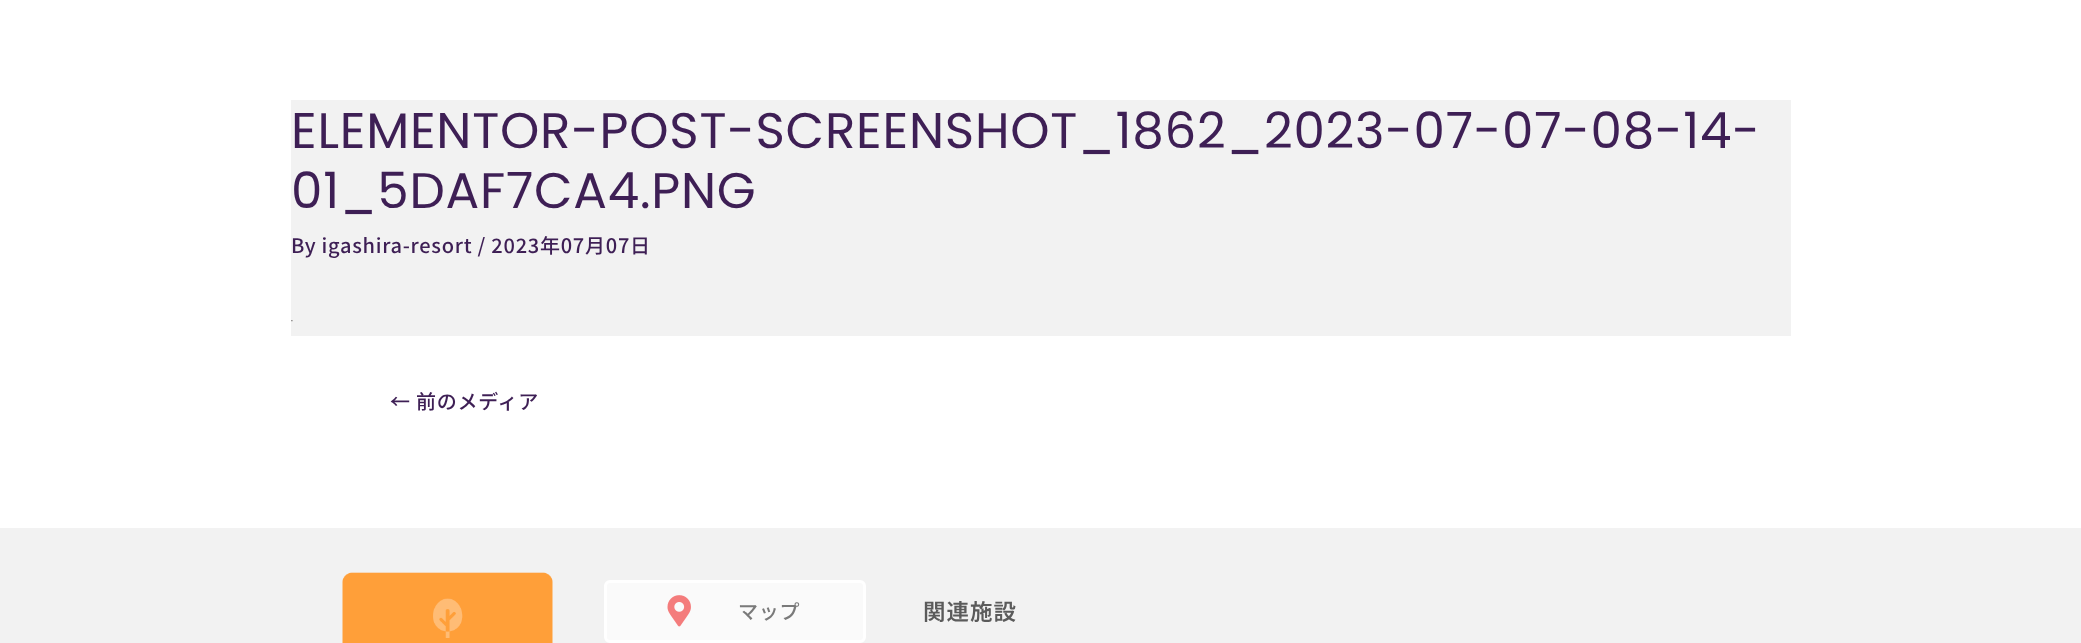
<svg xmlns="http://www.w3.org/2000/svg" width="2081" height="643">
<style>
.a{font:50px Poppins;letter-spacing:0.75px;fill:#3e1f55}
.b{font:500 20px Noto Sans JP;letter-spacing:0.75px;fill:#3e1f55}
.c{font:500 20px Noto Sans JP;letter-spacing:0.75px;fill:#7a7a7a}
.d{font:600 22.5px Noto Sans JP;letter-spacing:1px;fill:#5b5b5b}
</style>
<rect width="100%" height="100%" fill="#fff"/>
<path fill="#f2f2f2" d="M291 100h1500v236H291z"/>
<image href="1.png" x="291" y="320" width="2" height="2"/>
<path fill="#f2f2f2" d="M0 528h2081v115H0z"/>
<image href="2.png" x="342" y="572" width="211" height="71"/>
<rect fill="#fafafa" stroke="#fff" stroke-width="3" x="605.5" y="581.5" width="259" height="60" rx="4.5"/>
<image href="3.png" x="667" y="595" width="24" height="32"/>
<text class="a" x="291" y="148">ELEMENTOR-POST-SCREENSHOT_1862_2023-07-07-08-14-</text>
<text class="a" x="291" y="208">01_5DAF7CA4.PNG</text>
<text class="b" x="291" y="253">By igashira-resort / 2023年07月07日</text>
<text class="b" x="390" y="409">← 前のメディア</text>
<text class="c" x="738" y="619">マップ</text>
<text class="d" x="923" y="620">関連施設</text>
</svg>
